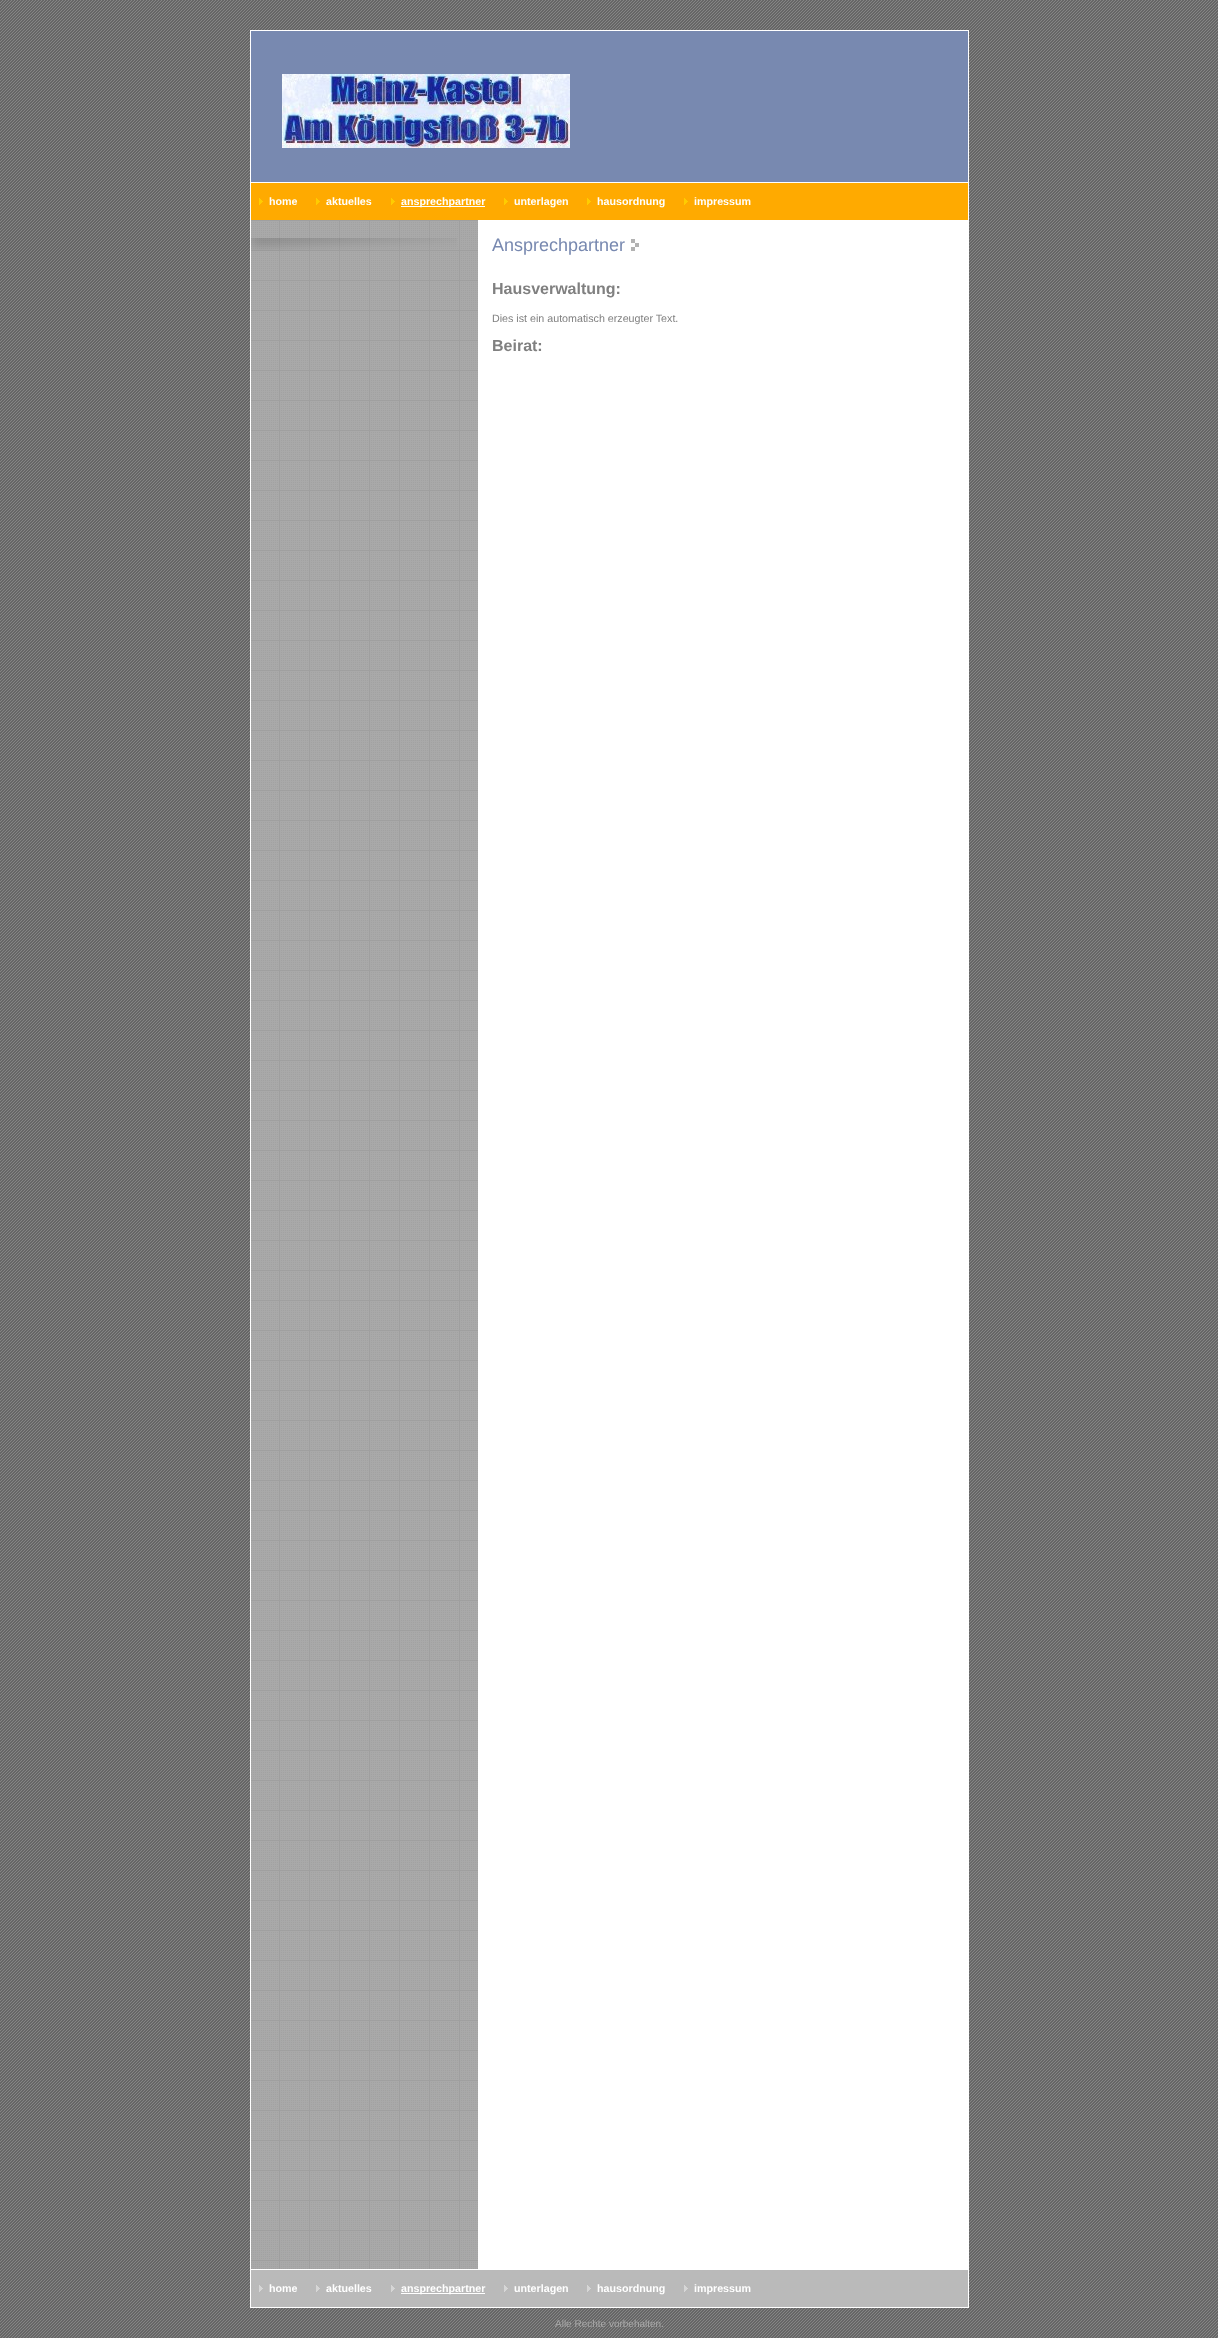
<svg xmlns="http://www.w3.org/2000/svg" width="1218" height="2338">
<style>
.a{font:bold 10.7px Liberation Sans;fill:#fff}
.b{font:18px Liberation Sans;fill:#7889b0}
.c{font:bold 16px Liberation Sans;fill:#808080}
.d{font:10.7px Liberation Sans;fill:#808080}
.e{font:10px Liberation Sans;fill:#aaa}
</style>
<rect width="100%" height="100%" fill="#fff"/>
<image href="1.png" x="0" y="0" width="1218" height="2338"/>
<path fill="#fff" d="M250 30h719v1H250z"/>
<path fill="#fff" d="M250 31h1v151H250z"/>
<path fill="#7889b0" d="M251 31h717v151H251z"/>
<image href="2.png" x="282" y="74" width="288" height="74"/>
<path fill="#fff" d="M968 31h1v151H968z"/>
<path fill="#fff" d="M250 182h719v1H250z"/>
<path fill="#fff" d="M250 183h1v2086H250z"/>
<path fill="#fa0" d="M251 183h717v37H251z"/>
<image href="3.png" x="259" y="198" width="4" height="7"/>
<image href="3.png" x="316" y="198" width="4" height="7"/>
<image href="3.png" x="391" y="198" width="4" height="7"/>
<path fill="#fff" d="M401 206h84v1H401z"/>
<image href="3.png" x="504" y="198" width="4" height="7"/>
<image href="3.png" x="587" y="198" width="4" height="7"/>
<image href="3.png" x="684" y="198" width="4" height="7"/>
<path fill="#fff" d="M968 183h1v37H968z"/>
<image href="4.png" x="251" y="220" width="227" height="2049"/>
<image href="5.png" x="251" y="238" width="206" height="13"/>
<path fill="#fff" d="M478 220h491v2049H478z"/>
<image href="6.png" x="631" y="239" width="8" height="12"/>
<path fill="#fff" d="M250 2269h719v1H250z"/>
<path fill="#fff" d="M250 2270h1v37H250z"/>
<path fill="#bababa" d="M251 2270h717v37H251z"/>
<image href="7.png" x="259" y="2285" width="4" height="7"/>
<image href="7.png" x="316" y="2285" width="4" height="7"/>
<image href="7.png" x="391" y="2285" width="4" height="7"/>
<path fill="#fff" d="M401 2293h84v1H401z"/>
<image href="7.png" x="504" y="2285" width="4" height="7"/>
<image href="7.png" x="587" y="2285" width="4" height="7"/>
<image href="7.png" x="684" y="2285" width="4" height="7"/>
<path fill="#fff" d="M968 2270h1v37H968z"/>
<path fill="#fff" d="M250 2307h719v1H250z"/>
<text class="a" x="269" y="205">home</text>
<text class="a" x="326" y="205">aktuelles</text>
<text class="a" x="401" y="205">ansprechpartner</text>
<text class="a" x="514" y="205">unterlagen</text>
<text class="a" x="597" y="205">hausordnung</text>
<text class="a" x="694" y="205">impressum</text>
<text class="b" x="492" y="251">Ansprechpartner</text>
<text class="c" x="492" y="294">Hausverwaltung:</text>
<text class="d" x="492" y="322">Dies ist ein automatisch erzeugter Text.</text>
<text class="c" x="492" y="351">Beirat:</text>
<text class="a" x="269" y="2292">home</text>
<text class="a" x="326" y="2292">aktuelles</text>
<text class="a" x="401" y="2292">ansprechpartner</text>
<text class="a" x="514" y="2292">unterlagen</text>
<text class="a" x="597" y="2292">hausordnung</text>
<text class="a" x="694" y="2292">impressum</text>
<text class="e" x="555" y="2327">Alle Rechte vorbehalten.</text>
</svg>
